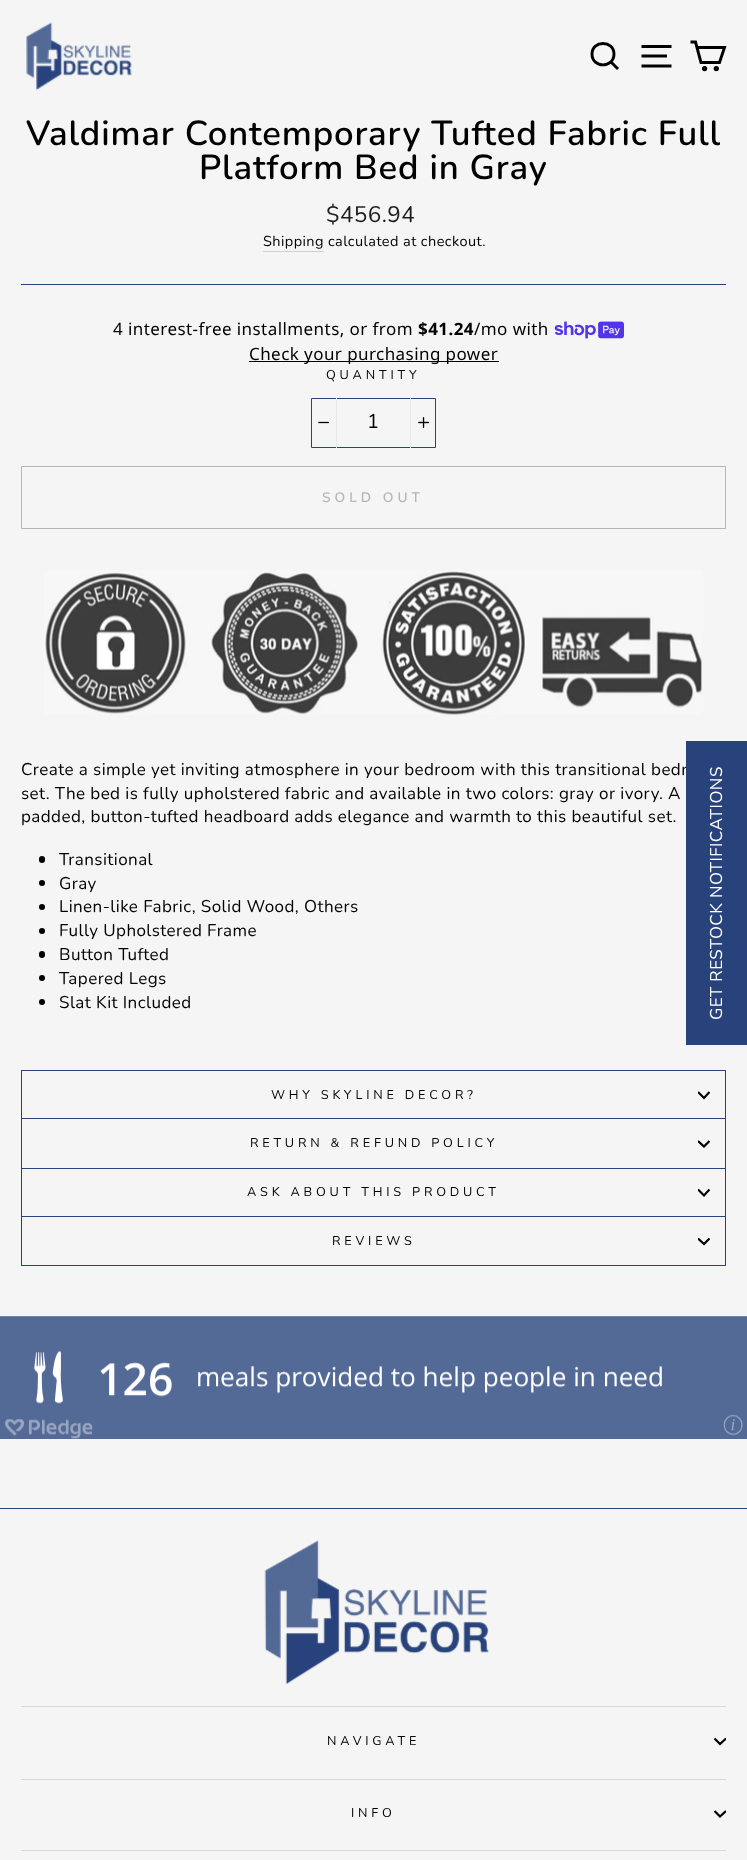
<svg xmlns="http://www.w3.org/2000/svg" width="747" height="1860">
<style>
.a{font:600 34.7px Nunito;letter-spacing:0.85px;fill:#000}
.b{font:22.5px Nunito;letter-spacing:0.43px;fill:#1c1d1d}
.c{font:14.5px Nunito;letter-spacing:0.43px;fill:#000}
.d{font:17px Noto Sans;letter-spacing:0.43px;fill:#000}
.e{font:bold 17px Noto Sans;letter-spacing:0.43px;fill:#000}
.f{font:12.75px Nunito;letter-spacing:3.8px;fill:#000}
.g{font:20px Nunito;fill:#000}
.h{font:600 13.75px Nunito;letter-spacing:4px;fill:#b6b6b6}
.i{font:17px Nunito;letter-spacing:0.43px;fill:#000}
.j{font:17px Nunito;letter-spacing:0.43px;fill:#fff}
</style>
<defs>
<clipPath id="clip1"><path d="M698 1089h12v12H698z"/></clipPath>
<clipPath id="clip2"><path d="M698 1138h12v12H698z"/></clipPath>
<clipPath id="clip3"><path d="M698 1186h12v13H698z"/></clipPath>
<clipPath id="clip4"><path d="M698 1235h12v13H698z"/></clipPath>
<clipPath id="clip5"><path d="M714 1735h12v13H714z"/></clipPath>
<clipPath id="clip6"><path d="M714 1808h12v12H714z"/></clipPath>
</defs>
<rect width="100%" height="100%" fill="#f5f5f5"/>
<path fill="#00000033" filter="blur(0.5px)" d="M0 0h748v113H0z"/>
<path fill="#f5f5f5" d="M0 0h747v113H0z"/>
<image href="1.png" x="26" y="22" width="106" height="69"/>
<path fill="none" stroke="#000" stroke-width="2.9" d="M614 54c0 14.5-22 14.5-22 0c0-14 22-14 22 0zm4 15l-7-7"/>
<path fill="none" stroke="#000" stroke-width="2.9" d="M641.5 46.5h30m-30 9.5h25.5m-25.5 10h30"/>
<path fill="none" stroke="#000" stroke-width="2.9" d="M697 47.5h27.5l-5 15h-18.5l-5.5-20.5h-5"/>
<circle fill="none" stroke="#000" stroke-width="2.9" cx="704.6" cy="68.6" r="1.2"/>
<circle fill="none" stroke="#000" stroke-width="2.9" cx="716.3" cy="68.6" r="1.2"/>
<path fill="#d0d0d0" d="M263 251h61v1H263z"/>
<path fill="#28437c" d="M21 284h705v1H21z"/>
<image href="2.png" x="554" y="321" width="70" height="18"/>
<path fill="#000" d="M249 361h250v1H249z"/>
<path fill="none" stroke="#28437c" d="M311.5 398.5h124v49H311.5z"/>
<path fill="#e8e8e8" d="M336 398h1v50H336z"/>
<image href="3.png" x="318" y="421" width="12" height="3"/>
<path fill="#e8e8e8" d="M410 398h1v50H410z"/>
<image href="4.png" x="418" y="417" width="11" height="11"/>
<path fill="none" stroke="#b6b6b6" d="M21.5 466.5h704v62H21.5z"/>
<image href="5.png" x="44" y="570" width="658" height="145"/>
<rect fill="#000" x="39" y="856" width="6" height="7" rx="3"/>
<circle fill="#000" cx="42" cy="883" r="3"/>
<circle fill="#000" cx="42" cy="907" r="3"/>
<circle fill="#000" cx="42" cy="931" r="3"/>
<rect fill="#000" x="39" y="951" width="6" height="7" rx="3"/>
<circle fill="#000" cx="42" cy="978" r="3"/>
<circle fill="#000" cx="42" cy="1002" r="3"/>
<path fill="#28437c" d="M21 1265h705v1H21z"/>
<path fill="#28437c" d="M21 1070h705v1H21z"/>
<path fill="#28437c" d="M725 1070h1v49H725z"/>
<path fill="#28437c" d="M21 1070h1v49H21z"/>
<g clip-path="url(#clip1)">
<path fill="none" stroke="#000" stroke-width="2.2" d="M698 1092l6 6l5.5-6"/>
</g>
<path fill="#28437c" d="M21 1118h705v1H21z"/>
<path fill="#28437c" d="M725 1118h1v50H725z"/>
<path fill="#28437c" d="M21 1118h1v50H21z"/>
<g clip-path="url(#clip2)">
<path fill="none" stroke="#000" stroke-width="2.2" d="M698 1141l6 5.5l5.5-5.5"/>
</g>
<path fill="#28437c" d="M21 1168h705v1H21z"/>
<path fill="#28437c" d="M725 1168h1v48H725z"/>
<path fill="#28437c" d="M21 1168h1v48H21z"/>
<g clip-path="url(#clip3)">
<path fill="none" stroke="#000" stroke-width="2.2" d="M698 1189.5l6 6l5.5-6"/>
</g>
<path fill="#28437c" d="M21 1216h705v1H21z"/>
<path fill="#28437c" d="M725 1216h1v49H725z"/>
<path fill="#28437c" d="M21 1216h1v49H21z"/>
<g clip-path="url(#clip4)">
<path fill="none" stroke="#000" stroke-width="2.2" d="M698 1238.5l6 5.5l5.5-5.5"/>
</g>
<image href="6.png" x="0" y="1316" width="747" height="123"/>
<path fill="#28437c" d="M0 1508h747v1H0z"/>
<image href="7.png" x="264" y="1540" width="225" height="145"/>
<path fill="#d8d8d8" d="M21 1706h705v1H21z"/>
<g clip-path="url(#clip5)">
<path fill="none" stroke="#000" stroke-width="2.2" d="M714.5 1738.5l5.5 5.5l6-5.5"/>
</g>
<path fill="#d8d8d8" d="M21 1779h705v1H21z"/>
<g clip-path="url(#clip6)">
<path fill="none" stroke="#000" stroke-width="2.2" d="M714.5 1811l5.5 5.5l6-5.5"/>
</g>
<path fill="#d8d8d8" d="M21 1850h705v1H21z"/>
<text class="a" x="26" y="145">Valdimar Contemporary Tufted Fabric Full</text>
<text class="a" x="199" y="179">Platform Bed in Gray</text>
<text class="b" x="326" y="222">$456.94</text>
<text class="c" x="263" y="246">Shipping</text>
<text class="c" x="328" y="246">calculated at checkout.</text>
<text class="d" x="113" y="335">4 interest-free installments, or from</text>
<text class="e" x="418" y="335">$41.24</text>
<text class="d" x="474" y="335">/mo with</text>
<text class="d" x="249" y="360">Check your purchasing power</text>
<text class="f" x="326" y="379">QUANTITY</text>
<text class="g" x="367" y="428">1</text>
<text class="h" x="322" y="502">SOLD OUT</text>
<text class="i" x="21" y="775">Create a simple yet inviting atmosphere in your bedroom with this transitional bedr</text>
<text class="i" x="21" y="799">set. The bed is fully upholstered fabric and available in two colors: gray or ivory. A</text>
<text class="i" x="21" y="822">padded, button-tufted headboard adds elegance and warmth to this beautiful set.</text>
<text class="i" x="59" y="865">Transitional</text>
<text class="i" x="59" y="889">Gray</text>
<text class="i" x="59" y="912">Linen-like Fabric, Solid Wood, Others</text>
<text class="i" x="59" y="936">Fully Upholstered Frame</text>
<text class="i" x="59" y="960">Button Tufted</text>
<text class="i" x="59" y="984">Tapered Legs</text>
<text class="i" x="59" y="1008">Slat Kit Included</text>
<text class="f" x="271" y="1099">WHY SKYLINE DECOR?</text>
<text class="f" x="250" y="1147">RETURN &amp; REFUND POLICY</text>
<text class="f" x="247" y="1196">ASK ABOUT THIS PRODUCT</text>
<text class="f" x="332" y="1245">REVIEWS</text>
<text class="f" x="327" y="1745">NAVIGATE</text>
<text class="f" x="351" y="1817">INFO</text>
<path fill="#28437c" d="M686 741h61v304H686z"/>
<text class="j" x="722" y="1020" transform="rotate(-90 722 1020)">GET RESTOCK NOTIFICATIONS</text>
</svg>
